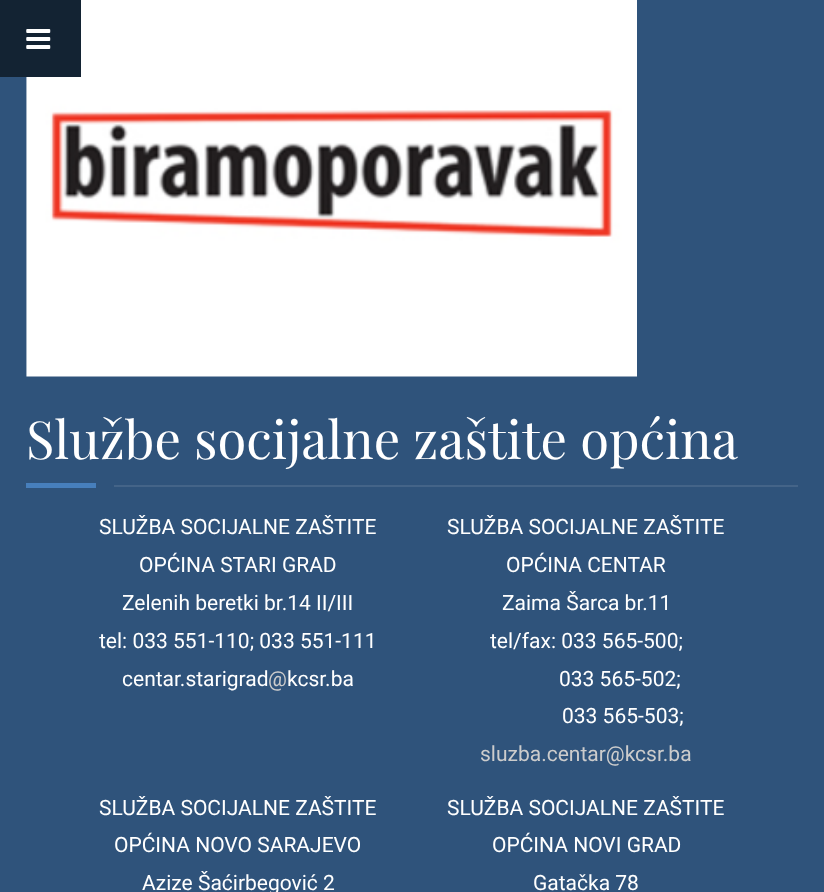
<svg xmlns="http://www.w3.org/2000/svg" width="824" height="892">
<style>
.a{font:52.5px Playfair Display;fill:#fff}
.b{font:21px Roboto;fill:#fff}
.c{font:21px Roboto;fill:#ccc}
</style>
<rect width="100%" height="100%" fill="#2f537b"/>
<image href="2.png" x="26" y="0" width="611" height="377"/>
<path fill="#132333" d="M0 0h81v77H0z"/>
<image href="1.png" x="26" y="29" width="25" height="20"/>
<path fill="#477fbc" d="M26 483h70v5H26z"/>
<path fill="#446488" d="M114 485h684v2H114z"/>
<text class="a" x="26" y="459">Službe socijalne zaštite općina</text>
<text class="b" x="99" y="534">SLUŽBA SOCIJALNE ZAŠTITE</text>
<text class="b" x="139" y="572">OPĆINA STARI GRAD</text>
<text class="b" x="122" y="610">Zelenih beretki br.14 II/III</text>
<text class="b" x="99" y="648">tel: 033 551-110; 033 551-111</text>
<text class="b" x="122" y="686">centar.starigrad</text>
<text class="c" x="268" y="686">@</text>
<text class="b" x="287" y="686">kcsr.ba</text>
<text class="b" x="447" y="534">SLUŽBA SOCIJALNE ZAŠTITE</text>
<text class="b" x="506" y="572">OPĆINA CENTAR</text>
<text class="b" x="502" y="610">Zaima Šarca br.11</text>
<text class="b" x="490" y="648">tel/fax: 033 565-500;</text>
<text class="b" x="559" y="686">033 565-502;</text>
<text class="b" x="562" y="723">033 565-503;</text>
<text class="c" x="480" y="761">sluzba.centar@kcsr.ba</text>
<text class="b" x="99" y="815">SLUŽBA SOCIJALNE ZAŠTITE</text>
<text class="b" x="114" y="852">OPĆINA NOVO SARAJEVO</text>
<text class="b" x="142" y="890">Azize Šaćirbegović 2</text>
<text class="b" x="447" y="815">SLUŽBA SOCIJALNE ZAŠTITE</text>
<text class="b" x="492" y="852">OPĆINA NOVI GRAD</text>
<text class="b" x="533" y="890">Gatačka 78</text>
</svg>
